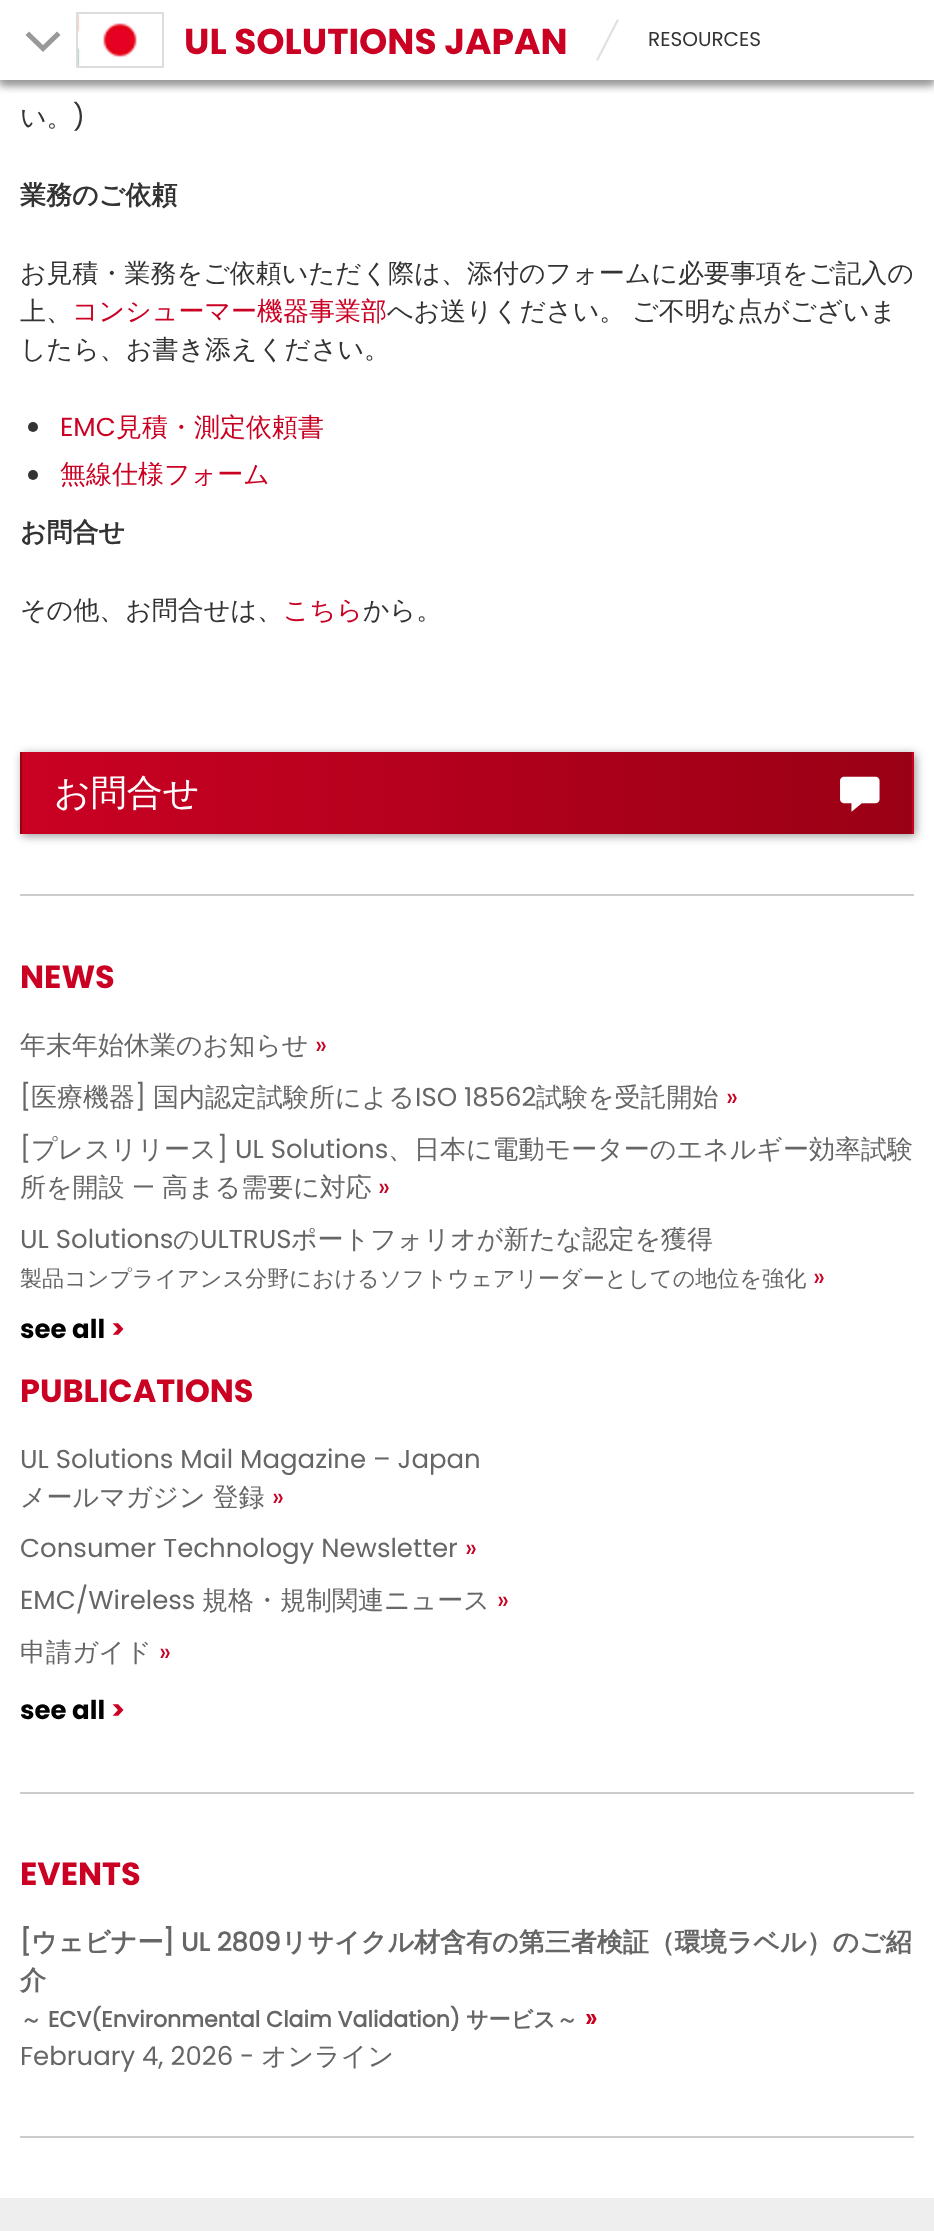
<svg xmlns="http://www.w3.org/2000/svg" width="934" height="2231">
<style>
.a{font:bold 36px Poppins;fill:#ca0123}
.b{font:20px Poppins;fill:#333}
.c{font:500 26px WenQuanYi Zen Hei;fill:#333}
.d{font:26px Poppins;fill:#333}
.e{font:bold 26px WenQuanYi Zen Hei;fill:#333}
.f{font:500 26px WenQuanYi Zen Hei;fill:#ca0123}
.g{font:26px Poppins;fill:#ca0123}
.h{font:500 36px WenQuanYi Zen Hei;fill:#fff}
.i{font:bold 32px Poppins;fill:#ca0123}
.j{font:500 26px WenQuanYi Zen Hei;fill:#666}
.k{font:26px Poppins;fill:#666}
.l{font:500 22.1px WenQuanYi Zen Hei;fill:#666}
.m{font:bold 26px Poppins;fill:#000}
.n{font:bold 26px Poppins;fill:#ca0123}
.o{font:bold 26px 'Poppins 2';fill:#666}
.p{font:bold 26px WenQuanYi Zen Hei;fill:#666}
.q{font:bold 22.1px WenQuanYi Zen Hei;fill:#666}
.r{font:bold 22.1px 'Poppins 2';fill:#666}
.s{font:bold 26px 'Poppins 2';fill:#ca0123}
</style>
<defs>
<clipPath id="clip1"><path d="M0 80h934v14H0z"/></clipPath>
<linearGradient id="g1" gradientUnits="userSpaceOnUse" x1="-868" y1="793" x2="22" y2="793"><stop offset="0" stop-color="#ca0123"/><stop offset="1" stop-color="#9a0015"/></linearGradient>
<linearGradient id="g2" gradientUnits="userSpaceOnUse" x1="22" y1="793" x2="912" y2="793"><stop offset="0" stop-color="#ca0123"/><stop offset="1" stop-color="#9a0015"/></linearGradient>
<linearGradient id="g3" gradientUnits="userSpaceOnUse" x1="912" y1="793" x2="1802" y2="793"><stop offset="0" stop-color="#ca0123"/><stop offset="1" stop-color="#9a0015"/></linearGradient>
</defs>
<rect width="100%" height="100%" fill="#eee"/>
<path fill="#fff" d="M0 80h934v2118H0z"/>
<path fill="#999" filter="blur(5px)" d="M0 4h934v80H0z"/>
<path fill="#fff" d="M0 0h934v80H0z"/>
<g clip-path="url(#clip1)">
<path fill="#999" filter="blur(5px)" d="M0 4h934v80H0z"/>
</g>
<path fill="#999" d="M25.5 35l3.5-3.5l14 13.5l14-13.5l3.5 3.5l-17.5 17z"/>
<image href="1.png" x="78" y="14" width="59" height="52"/>
<path fill="none" stroke="#ddd" stroke-width="2" d="M77 13h86v54H77z"/>
<path fill="#e1e1e1" d="M598 61l21-41l-2-1l-21 41z"/>
<circle fill="#333" cx="33" cy="427" r="5"/>
<circle fill="#333" cx="33" cy="475" r="5"/>
<path fill="#999" filter="blur(5px)" d="M22 754h894v82H22z"/>
<path fill="url(#g1)" d="M20 752h2v82H20z"/>
<path fill="url(#g2)" d="M22 752h890v82H22z"/>
<path fill="url(#g3)" d="M912 752h2v82H912z"/>
<image href="2.png" x="840" y="776" width="40" height="36"/>
<path fill="#ccc" d="M20 894h894v2H20z"/>
<path fill="#ccc" d="M20 1792h894v2H20z"/>
<path fill="#ccc" d="M20 2136h894v2H20z"/>
<text class="a" x="184" y="54">UL SOLUTIONS JAPAN</text>
<text class="b" x="648" y="46">RESOURCES</text>
<text class="c" x="20" y="126">い。</text>
<text class="d" x="73" y="126">)</text>
<text class="e" x="20" y="204">業務のご依頼</text>
<text class="c" x="20" y="282">お見積・業務をご依頼いただく際は、添付のフォームに必要事項をご記入の</text>
<text class="c" x="20" y="320">上、</text>
<text class="f" x="72" y="320">コンシューマー機器事業部</text>
<text class="c" x="387" y="320" word-spacing="-1">へお送りください。 ご不明な点がございま</text>
<text class="c" x="20" y="358">したら、お書き添えください。</text>
<text class="g" x="60" y="436">EMC</text>
<text class="f" x="116" y="436">見積・測定依頼書</text>
<text class="f" x="60" y="483">無線仕様フォーム</text>
<text class="e" x="20" y="541">お問合せ</text>
<text class="c" x="20" y="619">その他、お問合せは、</text>
<text class="f" x="283" y="619">こちら</text>
<text class="c" x="363" y="619">から。</text>
<text class="h" x="54" y="805">お問合せ</text>
<text class="i" x="20" y="988">NEWS</text>
<text class="j" x="20" y="1054">年末年始休業のお知らせ</text>
<text class="g" x="315" y="1054">»</text>
<text class="k" x="20" y="1106">[</text>
<text class="j" x="31" y="1106">医療機器</text>
<text class="k" x="135" y="1106">]</text>
<text class="j" x="153" y="1106">国内認定試験所による</text>
<text class="k" x="415" y="1106">ISO 18562</text>
<text class="j" x="536" y="1106">試験を受託開始</text>
<text class="g" x="726" y="1106">»</text>
<text class="k" x="20" y="1158">[</text>
<text class="j" x="31" y="1158">プレスリリース</text>
<text class="k" x="217" y="1158">] UL Solutions</text>
<text class="j" x="388" y="1158">、日本に電動モーターのエネルギー効率試験</text>
<text class="j" x="20" y="1196">所を開設</text>
<text class="k" x="132" y="1196">—</text>
<text class="j" x="162" y="1196">高まる需要に対応</text>
<text class="g" x="378" y="1196">»</text>
<text class="k" x="20" y="1248">UL Solutions</text>
<text class="j" x="173" y="1248">の</text>
<text class="k" x="200" y="1248">ULTRUS</text>
<text class="j" x="291" y="1248">ポートフォリオが新たな認定を獲得</text>
<text class="l" x="20" y="1286">製品コンプライアンス分野におけるソフトウェアリーダーとしての地位を強化</text>
<text class="g" x="813" y="1286">»</text>
<text class="m" x="20" y="1338">see all</text>
<text class="n" x="111" y="1338">&gt;</text>
<text class="i" x="20" y="1402">PUBLICATIONS</text>
<text class="k" x="20" y="1468">UL Solutions Mail Magazine – Japan</text>
<text class="j" x="20" y="1506" word-spacing="-1">メールマガジン 登録</text>
<text class="g" x="272" y="1506">»</text>
<text class="k" x="20" y="1557">Consumer Technology Newsletter</text>
<text class="g" x="465" y="1557">»</text>
<text class="k" x="20" y="1609">EMC/Wireless</text>
<text class="j" x="202" y="1609">規格・規制関連ニュース</text>
<text class="g" x="497" y="1609">»</text>
<text class="j" x="20" y="1661">申請ガイド</text>
<text class="g" x="159" y="1661">»</text>
<text class="m" x="20" y="1719">see all</text>
<text class="n" x="111" y="1719">&gt;</text>
<text class="i" x="20" y="1885">EVENTS</text>
<text class="o" x="20" y="1951">[</text>
<text class="p" x="31" y="1951">ウェビナー</text>
<text class="o" x="163" y="1951">] UL 2809</text>
<text class="p" x="281" y="1951">リサイクル材含有の第三者検証（環境ラベル）のご紹</text>
<text class="p" x="20" y="1989">介</text>
<text class="q" x="20" y="2027">～</text>
<text class="r" x="48" y="2027">ECV(Environmental Claim Validation)</text>
<text class="q" x="466" y="2027">サービス～</text>
<text class="s" x="585" y="2027">»</text>
<text class="k" x="20" y="2065">February 4, 2026 -</text>
<text class="j" x="261" y="2065">オンライン</text>
</svg>
